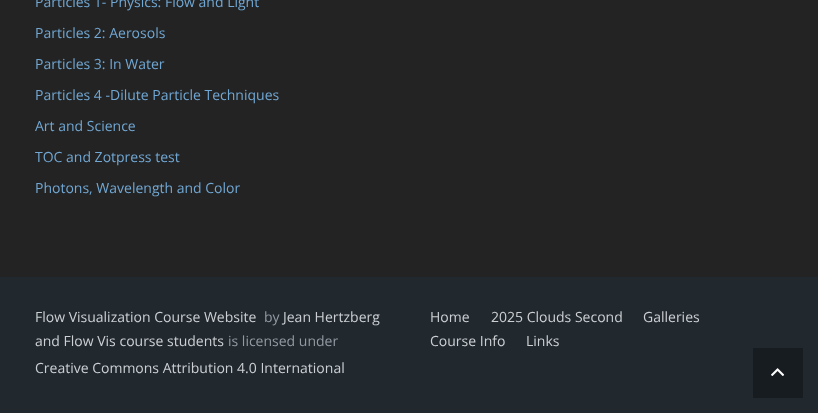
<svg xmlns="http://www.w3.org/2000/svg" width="818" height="413">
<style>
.a{font:14px Open Sans;fill:#71a7d3}
.b{font:14px Open Sans;fill:#ccd0d4}
.c{font:14px Open Sans;fill:#939aa2}
</style>
<rect width="100%" height="100%" fill="#232323"/>
<path fill="#21282e" d="M0 277h818v136H0z"/>
<path fill="#171c20" d="M753 348h50v50H753z"/>
<image href="1.png" x="771" y="368" width="14" height="8"/>
<text class="a" x="35" y="7">Particles 1- Physics: Flow and Light</text>
<text class="a" x="35" y="38">Particles 2: Aerosols</text>
<text class="a" x="35" y="69">Particles 3: In Water</text>
<text class="a" x="35" y="100">Particles 4 -Dilute Particle Techniques</text>
<text class="a" x="35" y="131">Art and Science</text>
<text class="a" x="35" y="162">TOC and Zotpress test</text>
<text class="a" x="35" y="193">Photons, Wavelength and Color</text>
<text class="b" x="35" y="322">Flow Visualization Course Website</text>
<text class="c" x="264" y="322">by</text>
<text class="b" x="283" y="322">Jean Hertzberg</text>
<text class="b" x="35" y="346">and Flow Vis course students</text>
<text class="c" x="228" y="346">is licensed under</text>
<text class="b" x="35" y="373">Creative Commons Attribution 4.0 International</text>
<text class="b" x="430" y="322">Home</text>
<text class="b" x="491" y="322">2025 Clouds Second</text>
<text class="b" x="643" y="322">Galleries</text>
<text class="b" x="430" y="346">Course Info</text>
<text class="b" x="526" y="346">Links</text>
</svg>
